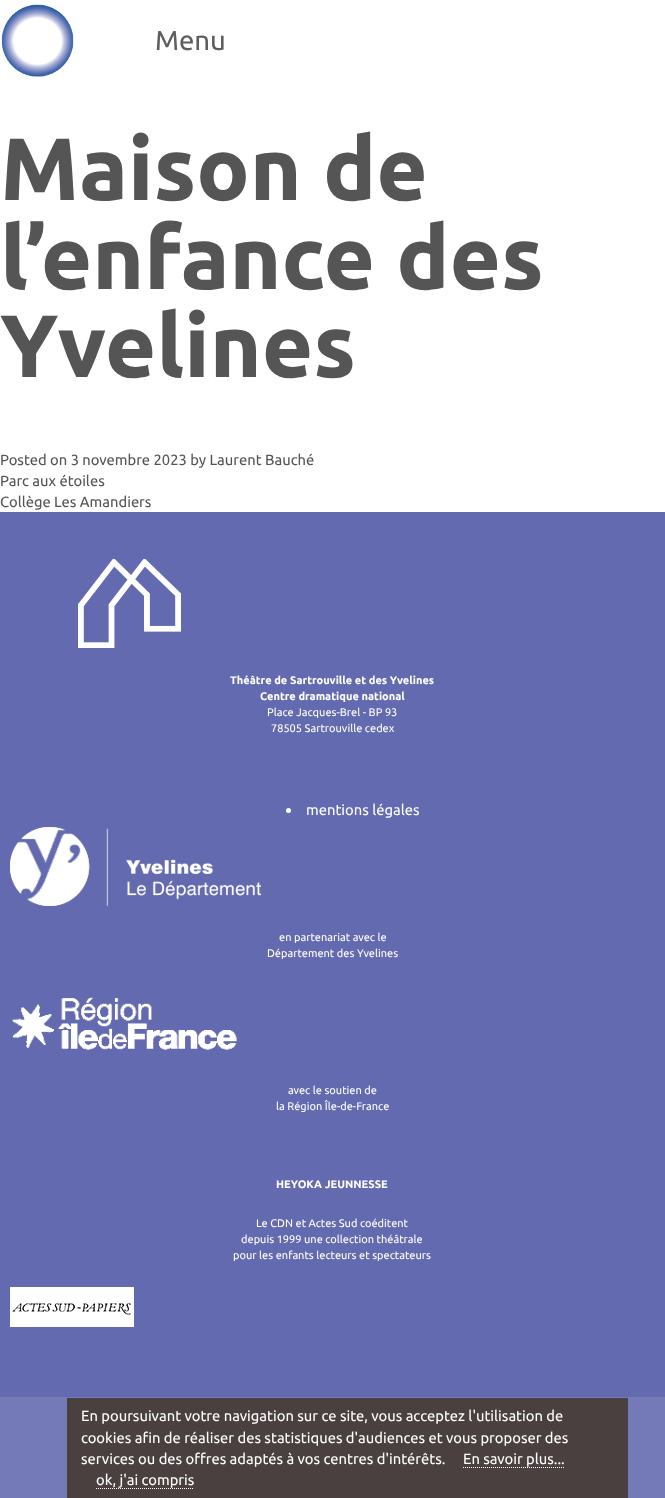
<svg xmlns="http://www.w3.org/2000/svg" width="665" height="1498">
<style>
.a{font:27.5px Ubuntu;fill:#5e5e5e}
.b{font:bold 88.25px Ubuntu;fill:#555}
.c{font:14.75px Ubuntu;fill:#555}
.d{font:bold 11px Ubuntu;fill:#fff}
.e{font:11px Ubuntu;fill:#fff}
.f{font:14.75px Ubuntu;fill:#fff}
</style>
<rect width="100%" height="100%" fill="#fff"/>
<image href="1.png" x="1" y="4" width="73" height="73"/>
<path fill="#636aaf" d="M0 512h665v885H0z"/>
<image href="2.png" x="78" y="559" width="103" height="89"/>
<circle fill="#fff" cx="288.5" cy="810.5" r="2.5"/>
<image href="3.png" x="10" y="827" width="251" height="79"/>
<image href="4.png" x="12" y="997" width="225" height="53"/>
<image href="5.png" x="10" y="1287" width="124" height="40"/>
<path fill="#747ab8" d="M0 1397h665v101H0z"/>
<path fill="#4a4040" d="M67 1398h561v100H67z"/>
<path fill="none" stroke="#fff" stroke-dasharray="1 1" d="M463 1467.5h101"/>
<path fill="none" stroke="#fff" stroke-dasharray="1 1" d="M96 1488.5h98"/>
<text class="a" x="155" y="50">Menu</text>
<text class="b" x="0" y="200">Maison de</text>
<text class="b" x="0" y="289">l’enfance des</text>
<text class="b" x="0" y="377">Yvelines</text>
<text class="c" x="0" y="465">Posted on 3 novembre 2023 by Laurent Bauché</text>
<text class="c" x="0" y="486">Parc aux étoiles</text>
<text class="c" x="0" y="507">Collège Les Amandiers</text>
<text class="d" x="230" y="684">Théâtre de Sartrouville et des Yvelines</text>
<text class="d" x="260" y="700">Centre dramatique national</text>
<text class="e" x="267" y="716">Place Jacques-Brel - BP 93</text>
<text class="e" x="271" y="732">78505 Sartrouville cedex</text>
<text class="f" x="306" y="815">mentions légales</text>
<text class="e" x="279" y="941">en partenariat avec le</text>
<text class="e" x="267" y="957">Département des Yvelines</text>
<text class="e" x="288" y="1094">avec le soutien de</text>
<text class="e" x="276" y="1110">la Région Île-de-France</text>
<text class="d" x="276" y="1188">HEYOKA JEUNNESSE</text>
<text class="e" x="256" y="1227">Le CDN et Actes Sud coéditent</text>
<text class="e" x="241" y="1243">depuis 1999 une collection théâtrale</text>
<text class="e" x="233" y="1259">pour les enfants lecteurs et spectateurs</text>
<text class="f" x="81" y="1421">En poursuivant votre navigation sur ce site, vous acceptez l'utilisation de</text>
<text class="f" x="81" y="1443">cookies afin de réaliser des statistiques d'audiences et vous proposer des</text>
<text class="f" x="81" y="1464">services ou des offres adaptés à vos centres d'intérêts.</text>
<text class="f" x="463" y="1464">En savoir plus...</text>
<text class="f" x="96" y="1485">ok, j'ai compris</text>
</svg>
